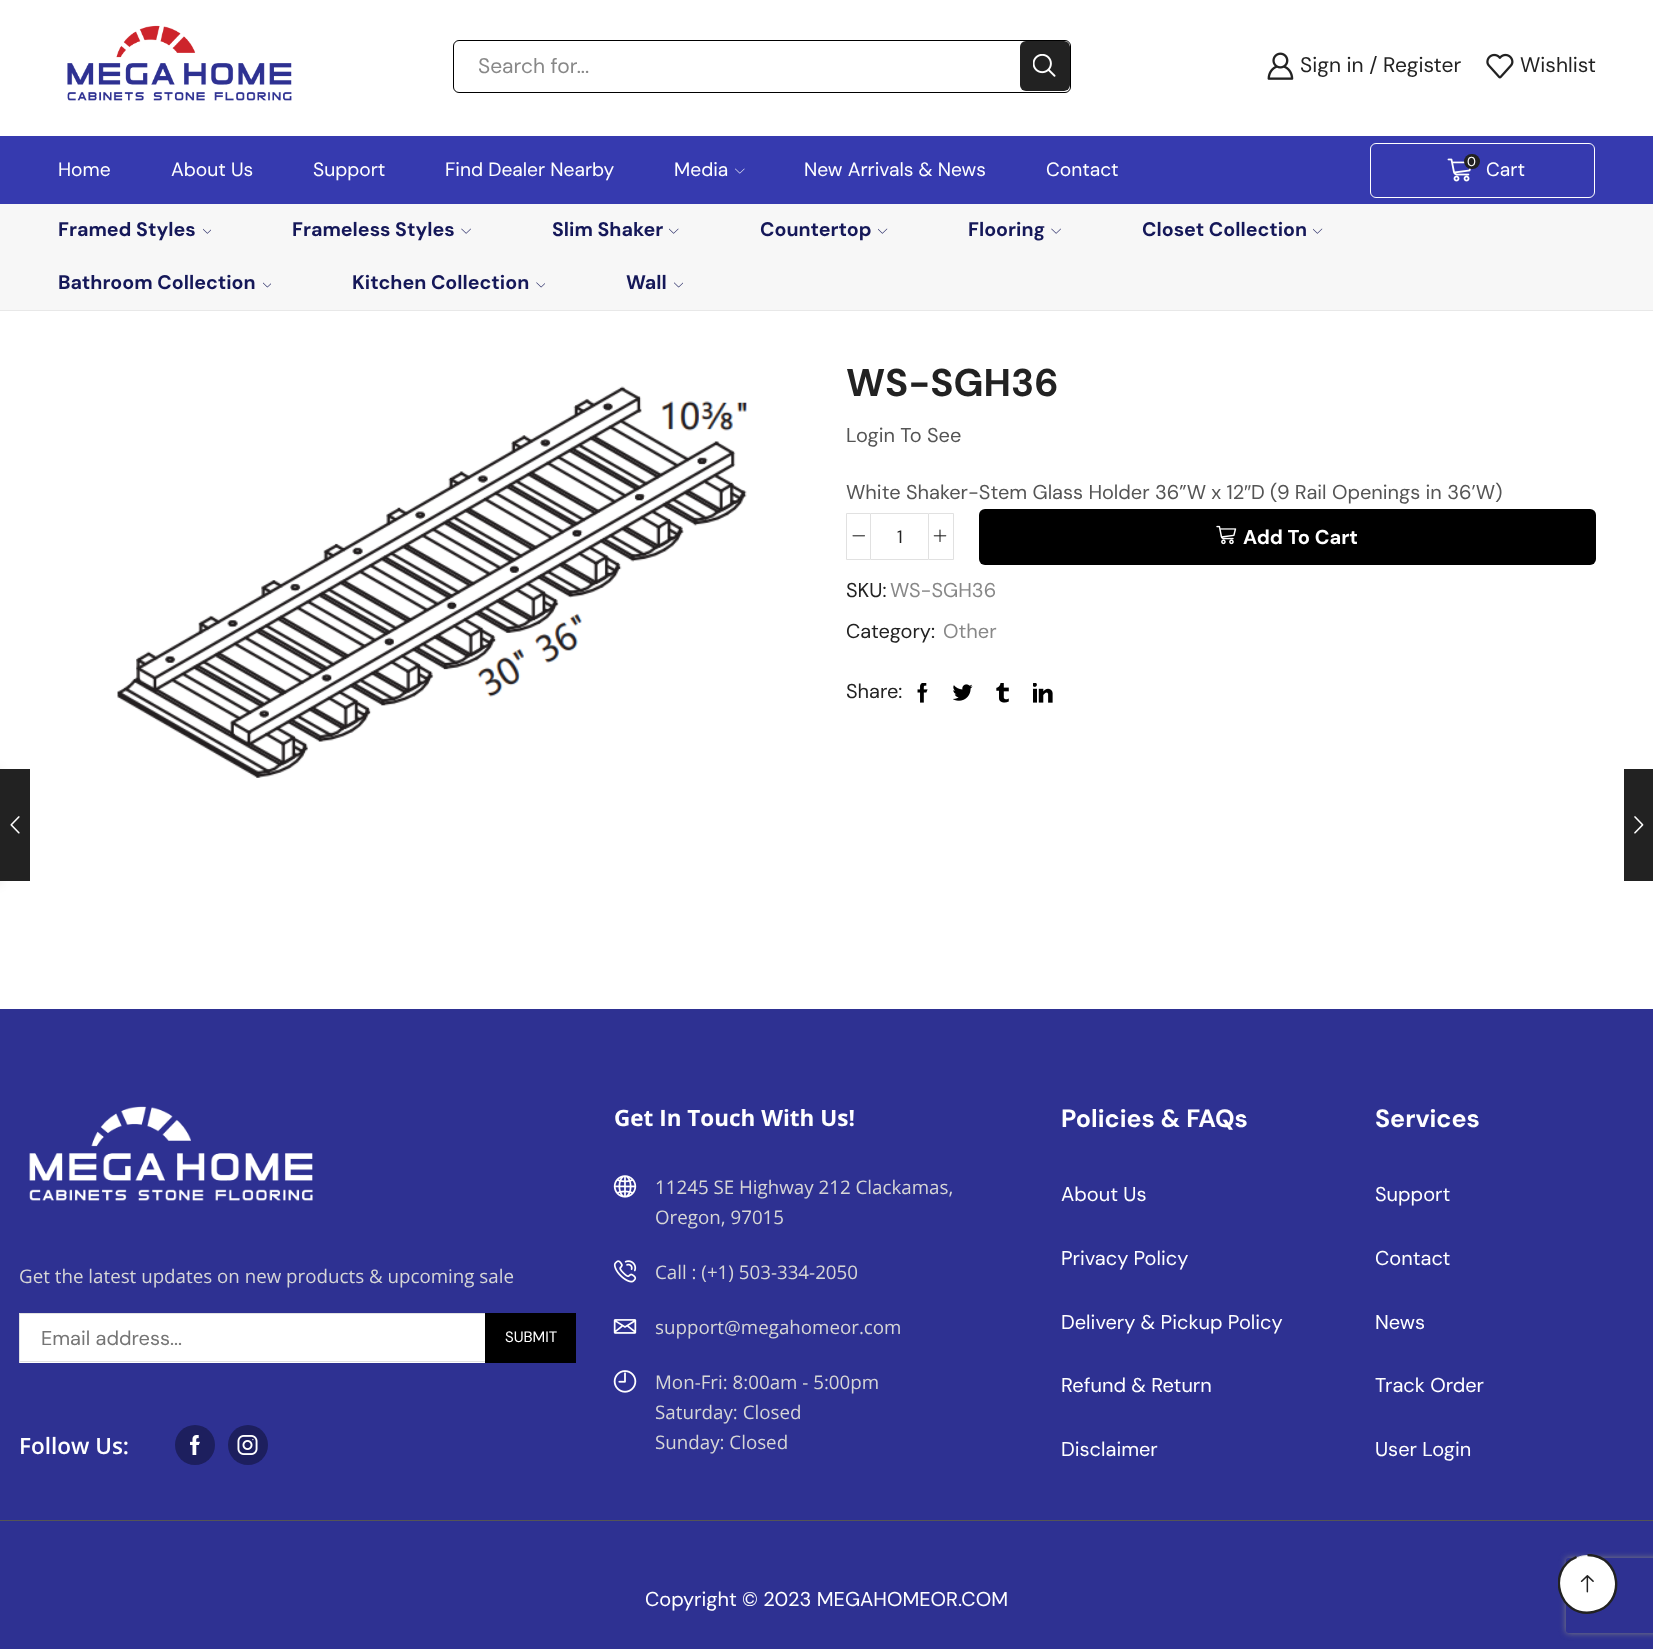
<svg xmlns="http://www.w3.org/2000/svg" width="1653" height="1649">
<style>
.a{font:21px DM Sans;fill:#888}
.b{font:21px DM Sans;fill:#222}
.c{font:19.25px DM Sans;fill:#fff}
.d{font:13px DM Sans;fill:#fff}
.e{font:bold 19.6px DM Sans;fill:#151859}
.f{font:bold 38.5px DM Sans;fill:#222}
.g{font:20px DM Sans;fill:#555}
.h{font:20px Liberation Sans;fill:#555}
.i{font:18px DM Sans;fill:#222}
.j{font:bold 20px DM Sans;fill:#fff}
.k{font:20px DM Sans;fill:#222}
.l{font:20px DM Sans;fill:#888}
.m{font:18.75px Open Sans;fill:#d6d6d6}
.n{font:20px DM Sans;fill:#757575}
.o{font:15px DM Sans;fill:#fff}
.p{font:600 22.5px Open Sans;fill:#fff}
.q{font:bold 22.5px Open Sans;fill:#fff}
.r{font:bold 25px DM Sans;fill:#fff}
.s{font:20px DM Sans;fill:#fff}
</style>
<defs>
<clipPath id="clip1"><rect x="454" y="41" width="616" height="50" rx="5"/></clipPath>
<clipPath id="clip2"><path d="M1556 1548h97v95h-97zm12.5 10h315c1.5 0 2.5 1 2.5 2.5v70c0 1.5-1 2.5-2.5 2.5h-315c-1.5 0-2.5-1-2.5-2.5v-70c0-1.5 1-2.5 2.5-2.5z" clip-rule="evenodd"/></clipPath>
<clipPath id="clip3"><path d="M1558 1554h60v60H1558z"/></clipPath>
</defs>
<rect width="100%" height="100%" fill="#fff"/>
<image href="1.png" x="67" y="25" width="225" height="76"/>
<rect fill="none" stroke="#000" x="453.5" y="40.5" width="617" height="52" rx="5.5"/>
<g clip-path="url(#clip1)">
<rect fill="#222" x="1020" y="41" width="50" height="50" rx="6"/>
</g>
<image href="2.png" x="1033" y="54" width="23" height="23"/>
<image href="3.png" x="1267" y="52" width="27" height="28"/>
<image href="4.png" x="1486" y="53" width="28" height="26"/>
<path fill="#363aaf" d="M0 136h1653v68H0z"/>
<image href="5.png" x="735" y="168" width="10" height="6"/>
<rect fill="none" stroke="#fff" x="1370.5" y="143.5" width="224" height="54" rx="5.5"/>
<image href="6.png" x="1447" y="158" width="24" height="24"/>
<rect fill="#222" x="1464" y="154" width="16" height="15" rx="7.5"/>
<path fill="#f7f7f7" d="M0 204h1653v106H0z"/>
<path fill="#e8e8e8" d="M0 310h1653v1H0z"/>
<image href="7.png" x="203" y="228" width="8" height="6"/>
<image href="8.png" x="461" y="228" width="10" height="6"/>
<image href="9.png" x="669" y="228" width="10" height="6"/>
<image href="10.png" x="878" y="228" width="10" height="6"/>
<image href="8.png" x="1051" y="228" width="10" height="6"/>
<image href="10.png" x="1313" y="228" width="10" height="6"/>
<image href="11.png" x="263" y="282" width="8" height="6"/>
<image href="12.png" x="536" y="282" width="9" height="6"/>
<image href="13.png" x="674" y="282" width="9" height="6"/>
<image href="14.png" x="117" y="386" width="630" height="392"/>
<path fill="none" stroke="#e1e1e1" d="M846.5 513.5h24v46H846.5z"/>
<image href="15.png" x="852" y="535" width="13" height="2"/>
<path fill="#e1e1e1" d="M871 513h57v1H871z"/>
<path fill="#e1e1e1" d="M871 559h57v1H871z"/>
<path fill="none" stroke="#e1e1e1" d="M928.5 513.5h25v46H928.5z"/>
<image href="16.png" x="933" y="529" width="14" height="13"/>
<rect fill="#000" x="979" y="509" width="617" height="56" rx="6"/>
<image href="17.png" x="1216" y="525" width="21" height="20"/>
<image href="18.png" x="917" y="683" width="11" height="20"/>
<image href="19.png" x="953" y="684" width="20" height="17"/>
<image href="20.png" x="996" y="683" width="13" height="20"/>
<image href="21.png" x="1033" y="683" width="20" height="20"/>
<path fill="#0000001a" filter="blur(6px)" d="M-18 770h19v113H-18z"/>
<path fill="#222" d="M0 769h30v112H0z"/>
<image href="22.png" x="10" y="816" width="10" height="18"/>
<path fill="#222" d="M1624 769h29v112H1624z"/>
<image href="23.png" x="1634" y="816" width="10" height="18"/>
<path fill="#2e3192" d="M0 1009h1653v640H0z"/>
<image href="24.png" x="29" y="1106" width="284" height="95"/>
<path fill="#fff" d="M20 1314h465v49H20z"/>
<path fill="#e1e1e1" d="M19 1313h466v1H19z"/>
<path fill="#e1e1e1" d="M19 1361h466v1H19z"/>
<path fill="#e1e1e1" d="M19 1313h1v50H19z"/>
<path fill="#000" d="M485 1313h91v50H485z"/>
<circle fill="#1d1f5e" cx="195" cy="1445" r="20"/>
<image href="25.png" x="190" y="1435" width="10" height="20"/>
<circle fill="#1d1f5e" cx="248" cy="1445" r="20"/>
<image href="26.png" x="237" y="1435" width="21" height="20"/>
<image href="27.png" x="613" y="1175" width="24" height="23"/>
<image href="28.png" x="613" y="1260" width="24" height="23"/>
<image href="29.png" x="613" y="1319" width="24" height="15"/>
<image href="30.png" x="613" y="1370" width="24" height="23"/>
<path fill="#555" d="M0 1520h1653v1H0z"/>
<g clip-path="url(#clip2)">
<rect fill="#808080" filter="blur(3px)" x="1566" y="1558" width="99" height="75" rx="2.5"/>
</g>
<rect fill="#fff" stroke="#e7e7e7" x="1559.5" y="1555.5" width="56" height="57" rx="28"/>
<g clip-path="url(#clip3)">
<path fill="none" stroke="#222" stroke-width="2.4" d="M1587.5 1555c34.5 0 39.5 50 6 57c-34.5 7-48.5-42-17-55"/>
</g>
<image href="31.png" x="1580" y="1575" width="14" height="18"/>
<text class="a" x="478" y="73">Search for...</text>
<text class="b" x="1300" y="72">Sign in / Register</text>
<text class="b" x="1520" y="72">Wishlist</text>
<text class="c" x="58" y="176">Home</text>
<text class="c" x="171" y="176">About Us</text>
<text class="c" x="313" y="176">Support</text>
<text class="c" x="445" y="176">Find Dealer Nearby</text>
<text class="c" x="674" y="176">Media</text>
<text class="c" x="804" y="176">New Arrivals &amp; News</text>
<text class="c" x="1046" y="176">Contact</text>
<text class="d" x="1467" y="166">0</text>
<text class="c" x="1486" y="176">Cart</text>
<text class="e" x="58" y="236">Framed Styles</text>
<text class="e" x="292" y="236">Frameless Styles</text>
<text class="e" x="552" y="236">Slim Shaker</text>
<text class="e" x="760" y="236">Countertop</text>
<text class="e" x="968" y="236">Flooring</text>
<text class="e" x="1142" y="236">Closet Collection</text>
<text class="e" x="58" y="289">Bathroom Collection</text>
<text class="e" x="352" y="289">Kitchen Collection</text>
<text class="e" x="626" y="289">Wall</text>
<text class="f" x="846" y="396">WS-SGH36</text>
<text class="g" x="846" y="442">Login To See</text>
<text class="g" x="846" y="499">White Shaker-Stem Glass Holder 36”W x 12</text>
<text class="h" x="1244" y="499">″</text>
<text class="g" x="1251" y="499">D (9 Rail Openings in 36’W)</text>
<text class="i" x="897" y="543">1</text>
<text class="j" x="1243" y="544">Add To Cart</text>
<text class="k" x="846" y="597">SKU:</text>
<text class="l" x="890" y="597">WS-SGH36</text>
<text class="k" x="846" y="638">Category:</text>
<text class="l" x="943" y="638">Other</text>
<text class="k" x="846" y="698">Share:</text>
<text class="m" x="19" y="1283">Get the latest updates on new products &amp; upcoming sale</text>
<text class="n" x="41" y="1345">Email address...</text>
<text class="o" x="505" y="1342">SUBMIT</text>
<text class="p" x="19" y="1454">Follow Us:</text>
<text class="q" x="614" y="1126">Get In Touch With Us!</text>
<text class="m" x="655" y="1194">11245 SE Highway 212 Clackamas,</text>
<text class="m" x="655" y="1224">Oregon, 97015</text>
<text class="m" x="655" y="1279">Call : (+1) 503-334-2050</text>
<text class="m" x="655" y="1334">support@megahomeor.com</text>
<text class="m" x="655" y="1389">Mon-Fri: 8:00am - 5:00pm</text>
<text class="m" x="655" y="1419">Saturday: Closed</text>
<text class="m" x="655" y="1449">Sunday: Closed</text>
<text class="r" x="1061" y="1127">Policies &amp; FAQs</text>
<text class="s" x="1061" y="1201">About Us</text>
<text class="s" x="1061" y="1265">Privacy Policy</text>
<text class="s" x="1061" y="1329">Delivery &amp; Pickup Policy</text>
<text class="s" x="1061" y="1392">Refund &amp; Return</text>
<text class="s" x="1061" y="1456">Disclaimer</text>
<text class="r" x="1375" y="1127">Services</text>
<text class="s" x="1375" y="1201">Support</text>
<text class="s" x="1375" y="1265">Contact</text>
<text class="s" x="1375" y="1329">News</text>
<text class="s" x="1375" y="1392">Track Order</text>
<text class="s" x="1375" y="1456">User Login</text>
<text class="s" x="645" y="1606">Copyright © 2023 MEGAHOMEOR.COM</text>
</svg>
